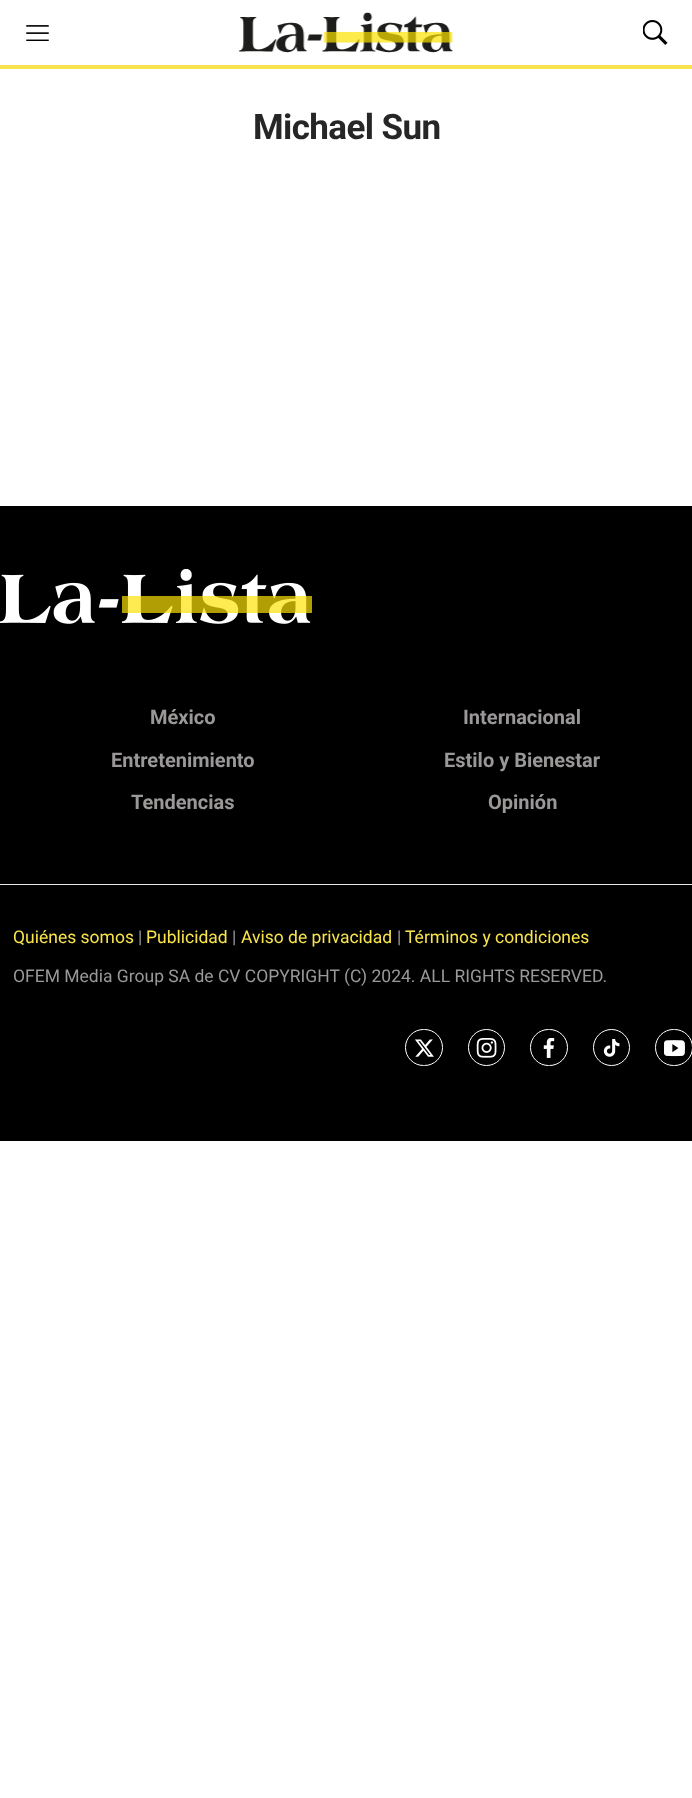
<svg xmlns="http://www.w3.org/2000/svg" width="692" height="1798">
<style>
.a{font:bold 35px Roboto;letter-spacing:-0.6px;fill:#272626}
.b{font:bold 20px Roboto;fill:#9b9898}
.c{font:17.5px Roboto;fill:#f9e44d}
.d{font:17.5px Roboto;fill:#9b9898}
</style>
<rect width="100%" height="100%" fill="#fff"/>
<path fill="#f9e44d" d="M0 65h692v4H0z"/>
<image href="1.png" x="26" y="25" width="23" height="16"/>
<image href="2.png" x="238" y="12" width="215" height="41"/>
<image href="3.png" x="643" y="20" width="25" height="25"/>
<path fill="#000" d="M0 506h692v635H0z"/>
<image href="4.png" x="0" y="569" width="312" height="55"/>
<path fill="#e6e6e6" d="M0 884h692v1H0z"/>
<rect fill="none" stroke="#fff" x="405.5" y="1029.5" width="37" height="36" rx="18"/>
<image href="5.png" x="415" y="1039" width="19" height="18"/>
<circle fill="none" stroke="#fff" cx="486.5" cy="1047.5" r="18"/>
<image href="6.png" x="476" y="1038" width="21" height="20"/>
<rect fill="none" stroke="#fff" x="530.5" y="1029.5" width="37" height="36" rx="18"/>
<image href="7.png" x="543" y="1038" width="12" height="20"/>
<circle fill="none" stroke="#fff" cx="611.5" cy="1047.5" r="18"/>
<image href="8.png" x="603" y="1039" width="17" height="18"/>
<rect fill="none" stroke="#fff" x="655.5" y="1029.5" width="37" height="36" rx="18"/>
<image href="9.png" x="664" y="1040" width="21" height="17"/>
<text class="a" x="253" y="139">Michael Sun</text>
<text class="b" x="150" y="724">México</text>
<text class="b" x="463" y="724">Internacional</text>
<text class="b" x="111" y="767">Entretenimiento</text>
<text class="b" x="444" y="767">Estilo y Bienestar</text>
<text class="b" x="131" y="809">Tendencias</text>
<text class="b" x="488" y="809">Opinión</text>
<text class="c" x="13" y="943">Quiénes somos</text>
<text class="d" x="138" y="943">|</text>
<text class="c" x="146" y="943">Publicidad</text>
<text class="d" x="232" y="943">|</text>
<text class="c" x="241" y="943">Aviso de privacidad</text>
<text class="d" x="397" y="943">|</text>
<text class="c" x="405" y="943">Términos y condiciones</text>
<text class="d" x="13" y="982">OFEM Media Group SA de CV COPYRIGHT (C) 2024. ALL RIGHTS RESERVED.</text>
</svg>
